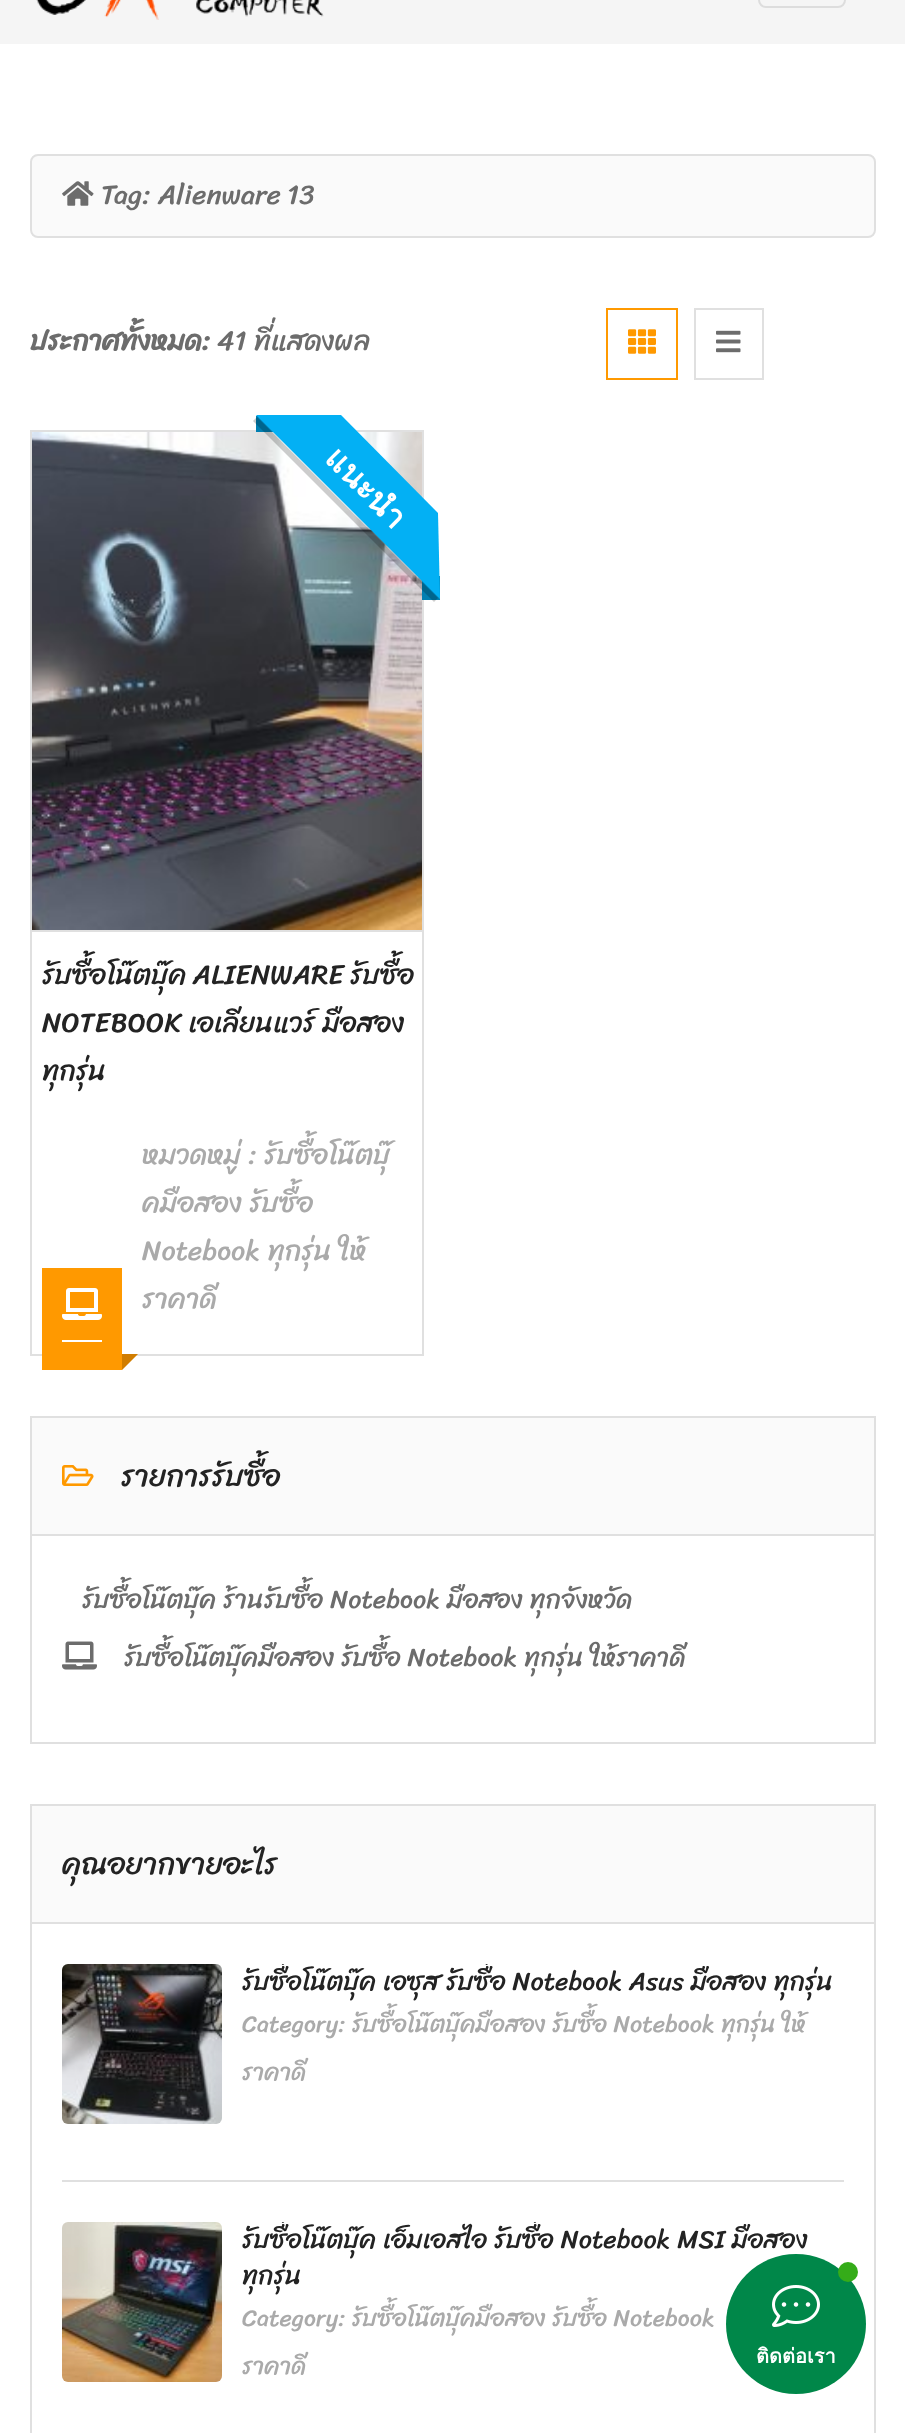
<svg xmlns="http://www.w3.org/2000/svg" width="905" height="2433">
<style>
.a{font:28px Sriracha;fill:#6c6c6c}
.b{font:bold 28px Sriracha;fill:#6c6c6c}
.c{font:bold 32px Loma;fill:#fff}
.d{font:28px Sriracha;fill:#232323}
.e{font:28px Sriracha;fill:#aaa}
.f{font:30px Sriracha;fill:#232323}
.g{font:26px Sriracha;fill:#6c6c6c}
.h{font:26px Sriracha;fill:#232323}
.i{font:24px Sriracha;fill:#aaa}
.j{font:bold 20px Loma;fill:#fff}
</style>
<defs>
<clipPath id="clip1"><path d="M242 1964h602v176H242z"/></clipPath>
<clipPath id="clip2"><path d="M242 2222h602v176H242z"/></clipPath>
</defs>
<rect width="100%" height="100%" fill="#fff"/>
<path fill="#f5f5f5" d="M0 0h905v44H0z"/>
<image href="1.png" x="36" y="0" width="288" height="20"/>
<rect fill="none" stroke="#ddd" stroke-width="2" x="759" y="-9" width="86" height="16" rx="7"/>
<rect fill="#fafafa" stroke="#e0e0e0" stroke-width="2" x="31" y="155" width="844" height="82" rx="7"/>
<image href="2.png" x="62" y="181" width="32" height="25"/>
<path fill="none" stroke="#f90" stroke-width="2" d="M607 309h70v70H607z"/>
<image href="3.png" x="628" y="329" width="28" height="25"/>
<path fill="none" stroke="#e0e0e0" stroke-width="2" d="M695 309h68v70H695z"/>
<image href="4.png" x="716" y="330" width="25" height="23"/>
<path fill="#e0e0e0" d="M30 430h394v2H30z"/>
<path fill="#e0e0e0" d="M422 430h2v500H422z"/>
<path fill="#e0e0e0" d="M30 430h2v500H30z"/>
<image href="5.png" x="32" y="432" width="390" height="498"/>
<path fill="#017fb1" d="M256 416h17v16H256z"/>
<path fill="#017fb1" d="M422 576h18v24H422z"/>
<path fill="#00000033" d="M257 417l-4 4l181 181l4-4z"/>
<path fill="#03b0f4" d="M440 599l-184-184h85l97 98z"/>
<path fill="none" stroke="#e0e0e0" stroke-width="2" d="M31 931h392v424H31z"/>
<path fill="#f90" d="M42 1268h80v102H42z"/>
<path fill="#fff" d="M62 1340h40v2H62z"/>
<image href="6.png" x="62" y="1288" width="40" height="32"/>
<path fill="#f90" d="M122 1354h16l-16 16z"/>
<path fill="#0000002e" d="M122 1354h16l-16 16z"/>
<path fill="none" stroke="#e0e0e0" stroke-width="2" d="M31 1417h844v326H31z"/>
<path fill="#fafafa" d="M32 1418h842v116H32z"/>
<path fill="#e0e0e0" d="M32 1534h842v2H32z"/>
<image href="7.png" x="62" y="1465" width="32" height="21"/>
<image href="8.png" x="62" y="1641" width="35" height="29"/>
<path fill="none" stroke="#e0e0e0" stroke-width="2" d="M31 1805h844v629H31z"/>
<path fill="#fafafa" d="M32 1806h842v116H32z"/>
<path fill="#e0e0e0" d="M32 1922h842v2H32z"/>
<path fill="#e0e0e0" d="M62 2180h782v2H62z"/>
<image href="9.png" x="62" y="1964" width="160" height="160"/>
<image href="10.png" x="62" y="2222" width="160" height="160"/>
<text class="a" x="101" y="204">Tag:</text>
<text class="a" x="158" y="204" word-spacing="-1">Alienware 13</text>
<text class="b" x="30" y="350">ประกาศทั้งหมด:</text>
<text class="a" x="217" y="350">41 ที่แสดงผล</text>
<text class="c" x="323" y="460" transform="rotate(45 323 460)">แนะนำ</text>
<text class="d" x="42" y="984" word-spacing="-1">รับซื้อโน๊ตบุ๊ค ALIENWARE รับซื้อ</text>
<text class="d" x="42" y="1032">NOTEBOOK เอเลียนแวร์ มือสอง</text>
<text class="d" x="42" y="1080">ทุกรุ่น</text>
<text class="e" x="142" y="1164">หมวดหมู่ : รับซื้อโน๊ตบุ๊</text>
<text class="e" x="142" y="1212">คมือสอง รับซื้อ</text>
<text class="e" x="142" y="1260">Notebook ทุกรุ่น ให้</text>
<text class="e" x="142" y="1308">ราคาดี</text>
<text class="f" x="121" y="1486">รายการรับซื้อ</text>
<text class="g" x="82" y="1608">รับซื้อโน๊ตบุ๊ค ร้านรับซื้อ Notebook มือสอง ทุกจังหวัด</text>
<text class="g" x="124" y="1666">รับซื้อโน๊ตบุ๊คมือสอง รับซื้อ Notebook ทุกรุ่น ให้ราคาดี</text>
<text class="f" x="62" y="1874">คุณอยากขายอะไร</text>
<g clip-path="url(#clip1)">
<text class="h" x="242" y="1990">รับซื้อโน๊ตบุ๊ค เอซุส รับซื้อ Notebook Asus มือสอง ทุกรุ่น</text>
</g>
<text class="i" x="242" y="2032">Category: รับซื้อโน๊ตบุ๊คมือสอง รับซื้อ Notebook ทุกรุ่น ให้</text>
<text class="i" x="242" y="2080">ราคาดี</text>
<g clip-path="url(#clip2)">
<text class="h" x="242" y="2248">รับซื้อโน๊ตบุ๊ค เอ็มเอสไอ รับซื้อ Notebook MSI มือสอง</text>
<text class="h" x="242" y="2284">ทุกรุ่น</text>
</g>
<text class="i" x="242" y="2326">Category: รับซื้อโน๊ตบุ๊คมือสอง รับซื้อ Notebook</text>
<text class="i" x="242" y="2374">ราคาดี</text>
<circle fill="#008749" cx="796" cy="2324" r="70"/>
<circle fill="#35ac19" cx="848" cy="2272" r="10"/>
<image href="11.png" x="772" y="2285" width="48" height="42"/>
<text class="j" x="756" y="2363">ติดต่อเรา</text>
</svg>
